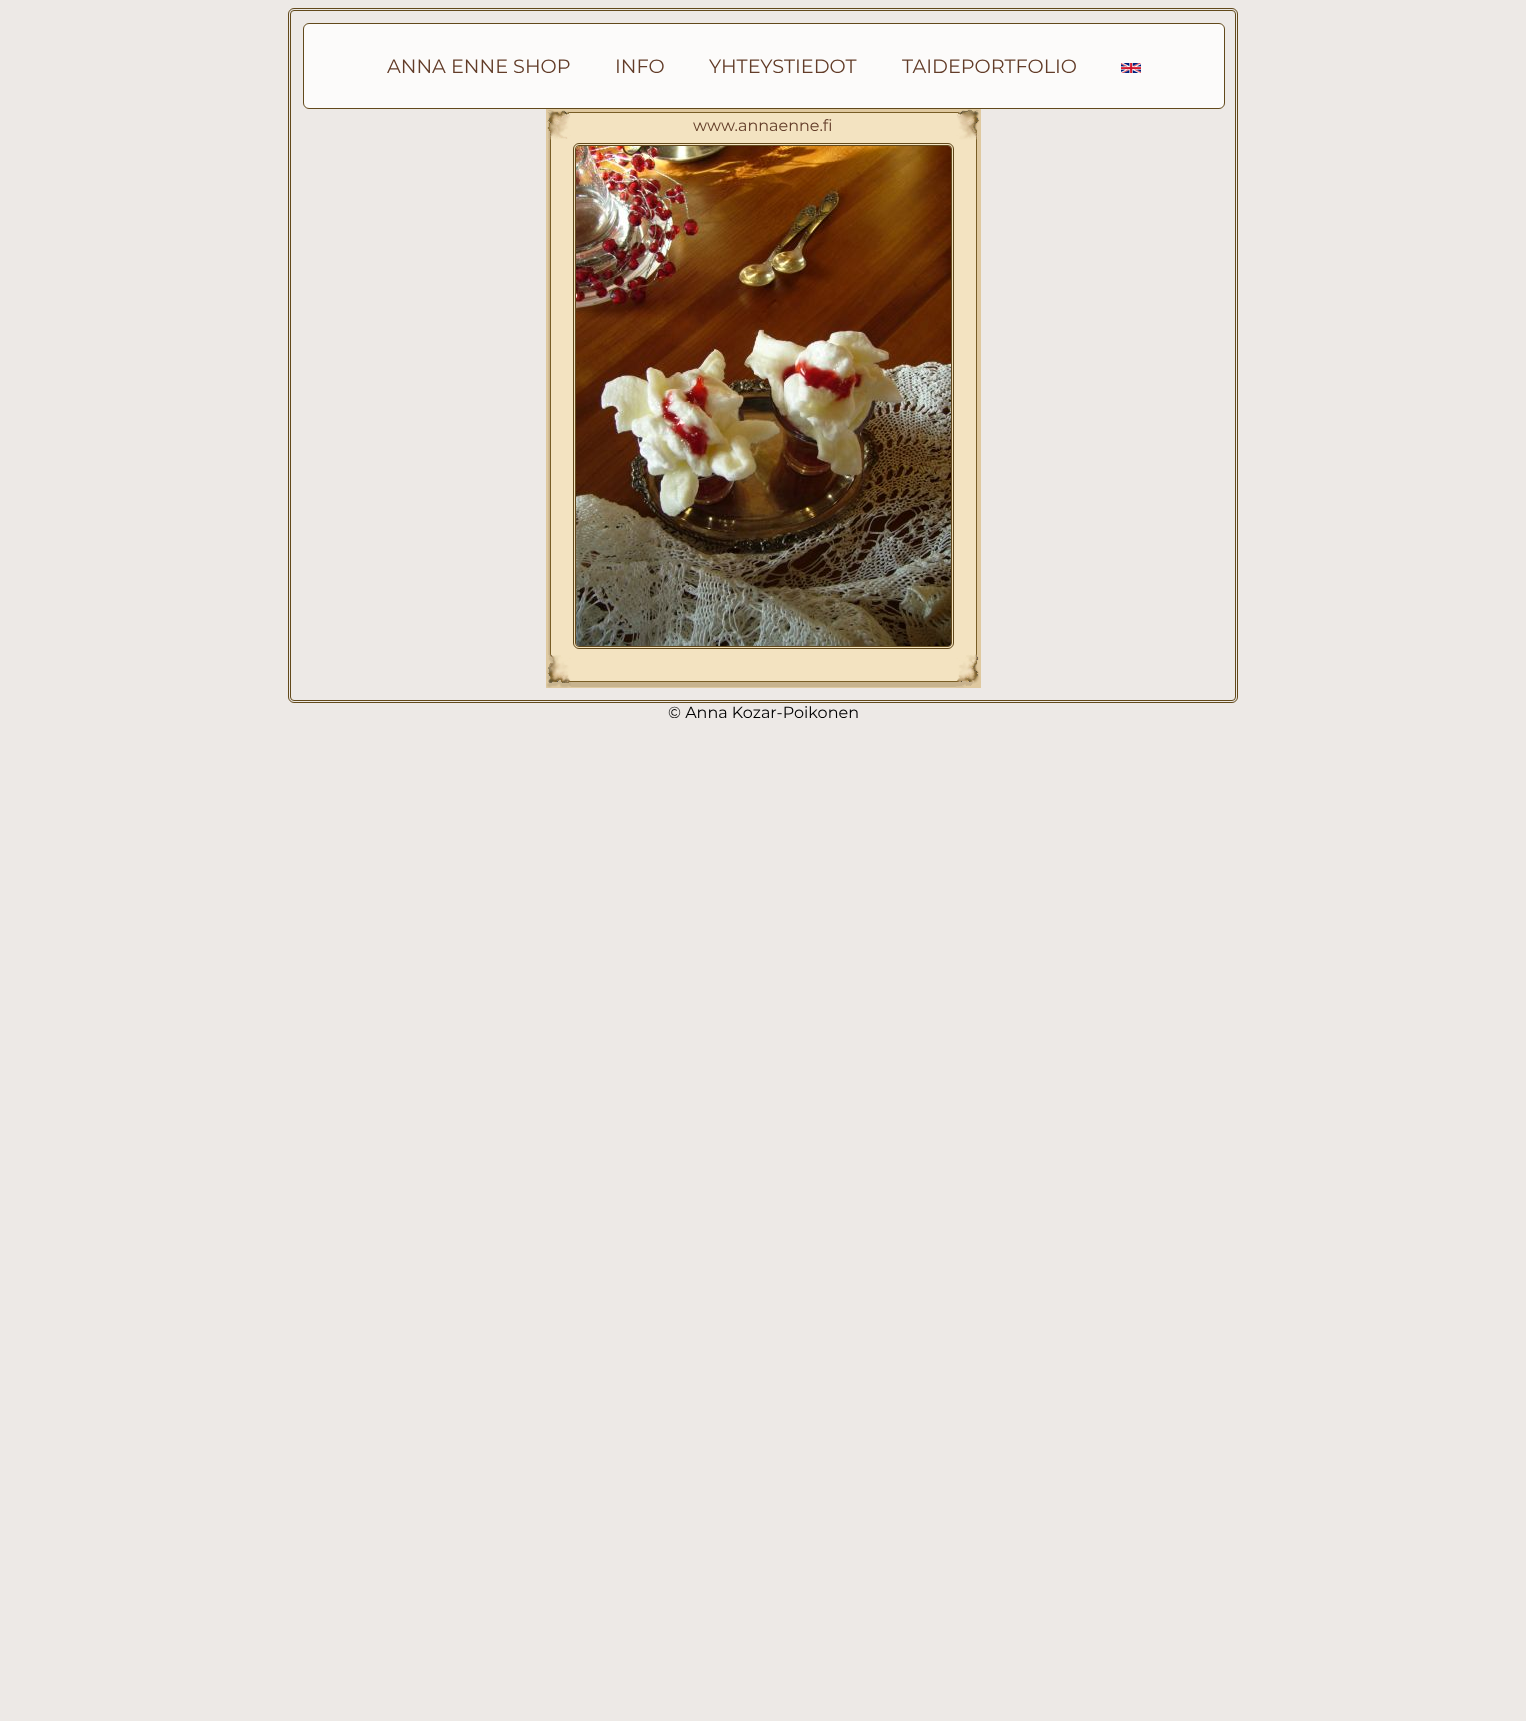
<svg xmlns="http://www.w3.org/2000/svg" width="1526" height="1721">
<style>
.a{font:100 19.25px Montserrat;fill:#623c28}
.b{font:100 16px Montserrat;fill:#623c28}
.c{font:100 16px Montserrat;fill:#000}
</style>
<rect width="100%" height="100%" fill="#ede9e6"/>
<rect fill="none" stroke="#62491b" x="288.5" y="8.5" width="949" height="694" rx="5.5"/>
<rect fill="none" stroke="#62491b" x="290.5" y="10.5" width="945" height="690" rx="3.5"/>
<rect fill="#fcfbfa" stroke="#62491b" x="303.5" y="23.5" width="921" height="85" rx="5.5"/>
<image href="1.png" x="1121" y="63" width="20" height="10"/>
<image href="2.png" x="546" y="109" width="25" height="32"/>
<image href="3.png" x="571" y="109" width="385" height="32"/>
<image href="4.png" x="956" y="109" width="25" height="32"/>
<image href="5.png" x="546" y="141" width="25" height="512"/>
<path fill="#f3e3c1" d="M571 141h385v512H571z"/>
<rect fill="none" stroke="#62491b" x="573.5" y="143.5" width="380" height="505" rx="5.5"/>
<rect fill="none" stroke="#62491b" x="575.5" y="145.5" width="376" height="501" rx="3.5"/>
<image href="6.png" x="576" y="146" width="375" height="500"/>
<image href="7.png" x="956" y="141" width="25" height="512"/>
<image href="8.png" x="546" y="653" width="25" height="35"/>
<image href="9.png" x="571" y="653" width="385" height="35"/>
<image href="10.png" x="956" y="653" width="25" height="35"/>
<text class="a" x="387" y="73">ANNA ENNE SHOP</text>
<text class="a" x="615" y="73">INFO</text>
<text class="a" x="709" y="73">YHTEYSTIEDOT</text>
<text class="a" x="902" y="73">TAIDEPORTFOLIO</text>
<text class="b" x="693" y="131">www.annaenne.fi</text>
<text class="c" x="668" y="718">© Anna Kozar-Poikonen</text>
</svg>
